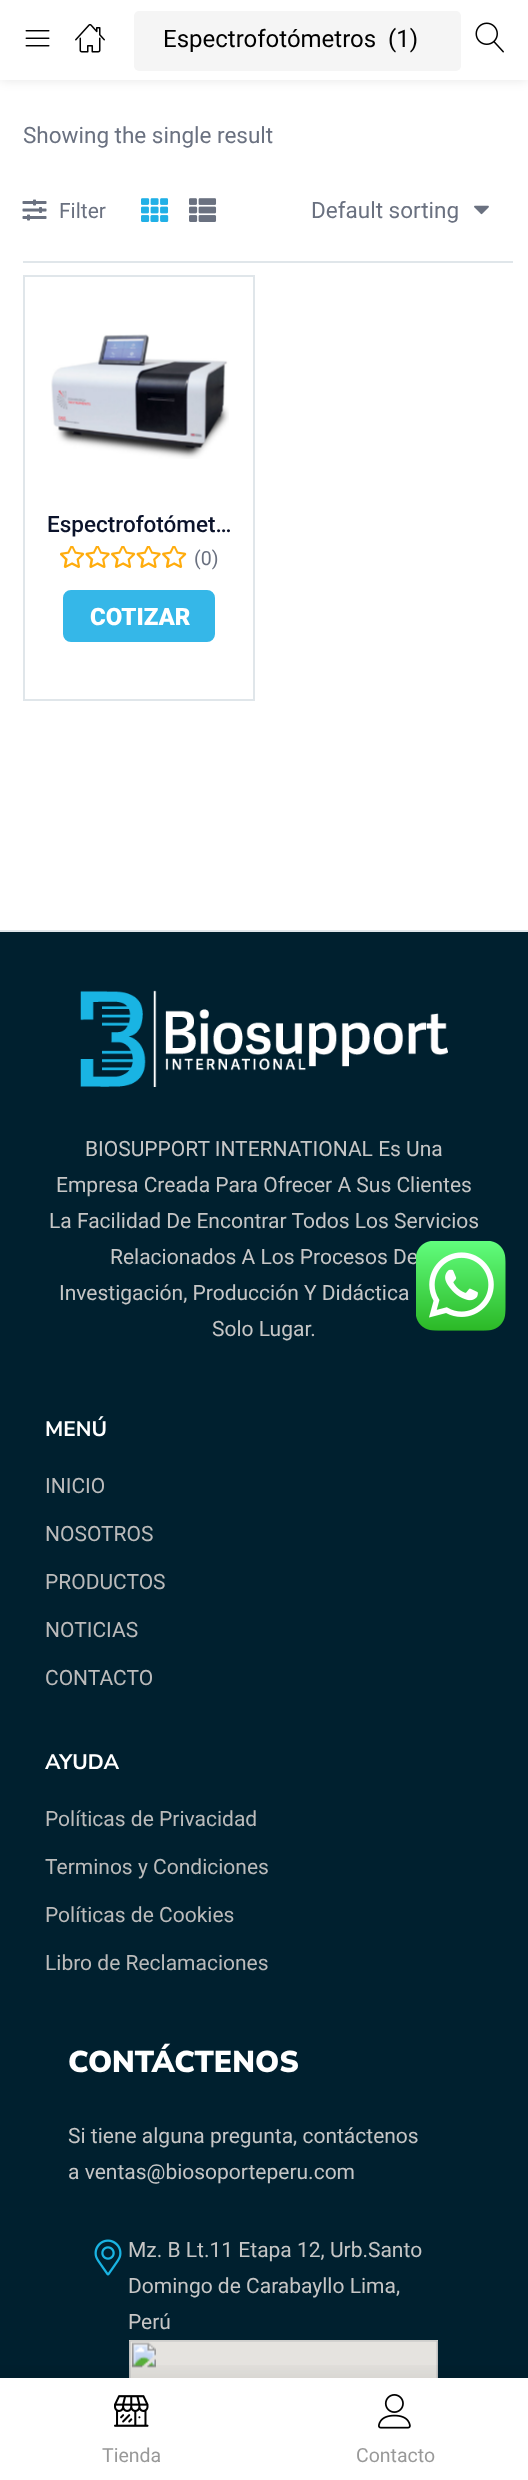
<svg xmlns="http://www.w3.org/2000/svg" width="528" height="2480">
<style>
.a{font:24px Roboto;fill:#000}
.b{font:22.5px Roboto;fill:#6a7180}
.c{font:21px Roboto;fill:#6a7180}
.d{font:500 22.5px Roboto;fill:#0b132b}
.e{font:19.5px Roboto;fill:#6a7180}
.f{font:900 24px Roboto;fill:#fff}
.g{font:21px Roboto;fill:#c6c6c6}
.h{font:bold 21px Nunito Sans;fill:#fff}
.i{font:21px Roboto;fill:#bbb}
.j{font:900 30px Nunito Sans;fill:#fff}
.k{font:19.5px Roboto;fill:#999}
</style>
<defs>
<clipPath id="clip1"><path d="M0 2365h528v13H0z"/></clipPath>
</defs>
<rect width="100%" height="100%" fill="#fff"/>
<path fill="#0000001a" filter="blur(6px)" d="M0 0h528v80H0z"/>
<path fill="#fff" d="M0 0h528v80H0z"/>
<image href="1.png" x="25" y="30" width="25" height="17"/>
<image href="2.png" x="75" y="24" width="30" height="29"/>
<rect fill="#f5f5f5" x="134" y="11" width="327" height="60" rx="5"/>
<image href="3.png" x="475" y="22" width="29" height="31"/>
<path fill="#e0e6ea" d="M23 261h490v2H23z"/>
<image href="4.png" x="22" y="199" width="25" height="22"/>
<image href="5.png" x="141" y="198" width="28" height="24"/>
<image href="6.png" x="189" y="198" width="28" height="24"/>
<image href="7.png" x="474" y="205" width="15" height="10"/>
<path fill="none" stroke="#e0e6ea" stroke-width="2" d="M24 276h230v424H24z"/>
<image href="8.png" x="51" y="334" width="178" height="125"/>
<image href="9.png" x="60" y="546" width="127" height="22"/>
<rect fill="#35b7e8" stroke="#35b7e8" stroke-width="2" x="64" y="591" width="150" height="50" rx="7"/>
<path fill="#00202f" d="M0 932h528v1446H0z"/>
<path fill="#e0e6ea" d="M0 930h528v2H0z"/>
<image href="10.png" x="80" y="990" width="368" height="97"/>
<image href="11.png" x="94" y="2239" width="28" height="37"/>
<image href="12.png" x="129" y="2340" width="309" height="38"/>
<g clip-path="url(#clip1)">
<path fill="#0000001a" filter="blur(15px)" d="M0 2378h528v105H0z"/>
</g>
<image href="13.png" x="114" y="2395" width="35" height="32"/>
<image href="14.png" x="378" y="2394" width="33" height="35"/>
<text class="a" xml:space="preserve" x="163" y="47">Espectrofotómetros  (1)</text>
<text class="b" x="23" y="143">Showing the single result</text>
<text class="c" x="59" y="218">Filter</text>
<text class="b" x="311" y="218">Default sorting</text>
<text class="d" x="47" y="532">Espectrofotómet…</text>
<text class="e" x="194" y="565">(0)</text>
<text class="f" x="90" y="625">COTIZAR</text>
<text class="g" x="85" y="1156">BIOSUPPORT INTERNATIONAL Es Una</text>
<text class="g" x="56" y="1192">Empresa Creada Para Ofrecer A Sus Clientes</text>
<text class="g" x="49" y="1228">La Facilidad De Encontrar Todos Los Servicios</text>
<text class="g" x="110" y="1264">Relacionados A Los Procesos De</text>
<text class="g" x="59" y="1300">Investigación, Producción Y Didáctica</text>
<text class="g" x="212" y="1336">Solo Lugar.</text>
<text class="h" x="45" y="1436">MENÚ</text>
<text class="i" x="45" y="1493">INICIO</text>
<text class="i" x="45" y="1541">NOSOTROS</text>
<text class="i" x="45" y="1589">PRODUCTOS</text>
<text class="i" x="45" y="1637">NOTICIAS</text>
<text class="i" x="45" y="1685">CONTACTO</text>
<text class="h" x="45" y="1769">AYUDA</text>
<text class="i" x="45" y="1826">Políticas de Privacidad</text>
<text class="i" x="45" y="1874">Terminos y Condiciones</text>
<text class="i" x="45" y="1922">Políticas de Cookies</text>
<text class="i" x="45" y="1970">Libro de Reclamaciones</text>
<text class="j" x="68" y="2072">CONTÁCTENOS</text>
<text class="g" x="68" y="2143">Si tiene alguna pregunta, contáctenos</text>
<text class="g" x="68" y="2179">a ventas@biosoporteperu.com</text>
<text class="g" x="128" y="2257">Mz. B Lt.11 Etapa 12, Urb.Santo</text>
<text class="g" x="128" y="2293">Domingo de Carabayllo Lima,</text>
<text class="g" x="128" y="2329">Perú</text>
<text class="k" x="102" y="2462">Tienda</text>
<text class="k" x="356" y="2462">Contacto</text>
<image href="15.png" x="416" y="1241" width="90" height="90"/>
</svg>
